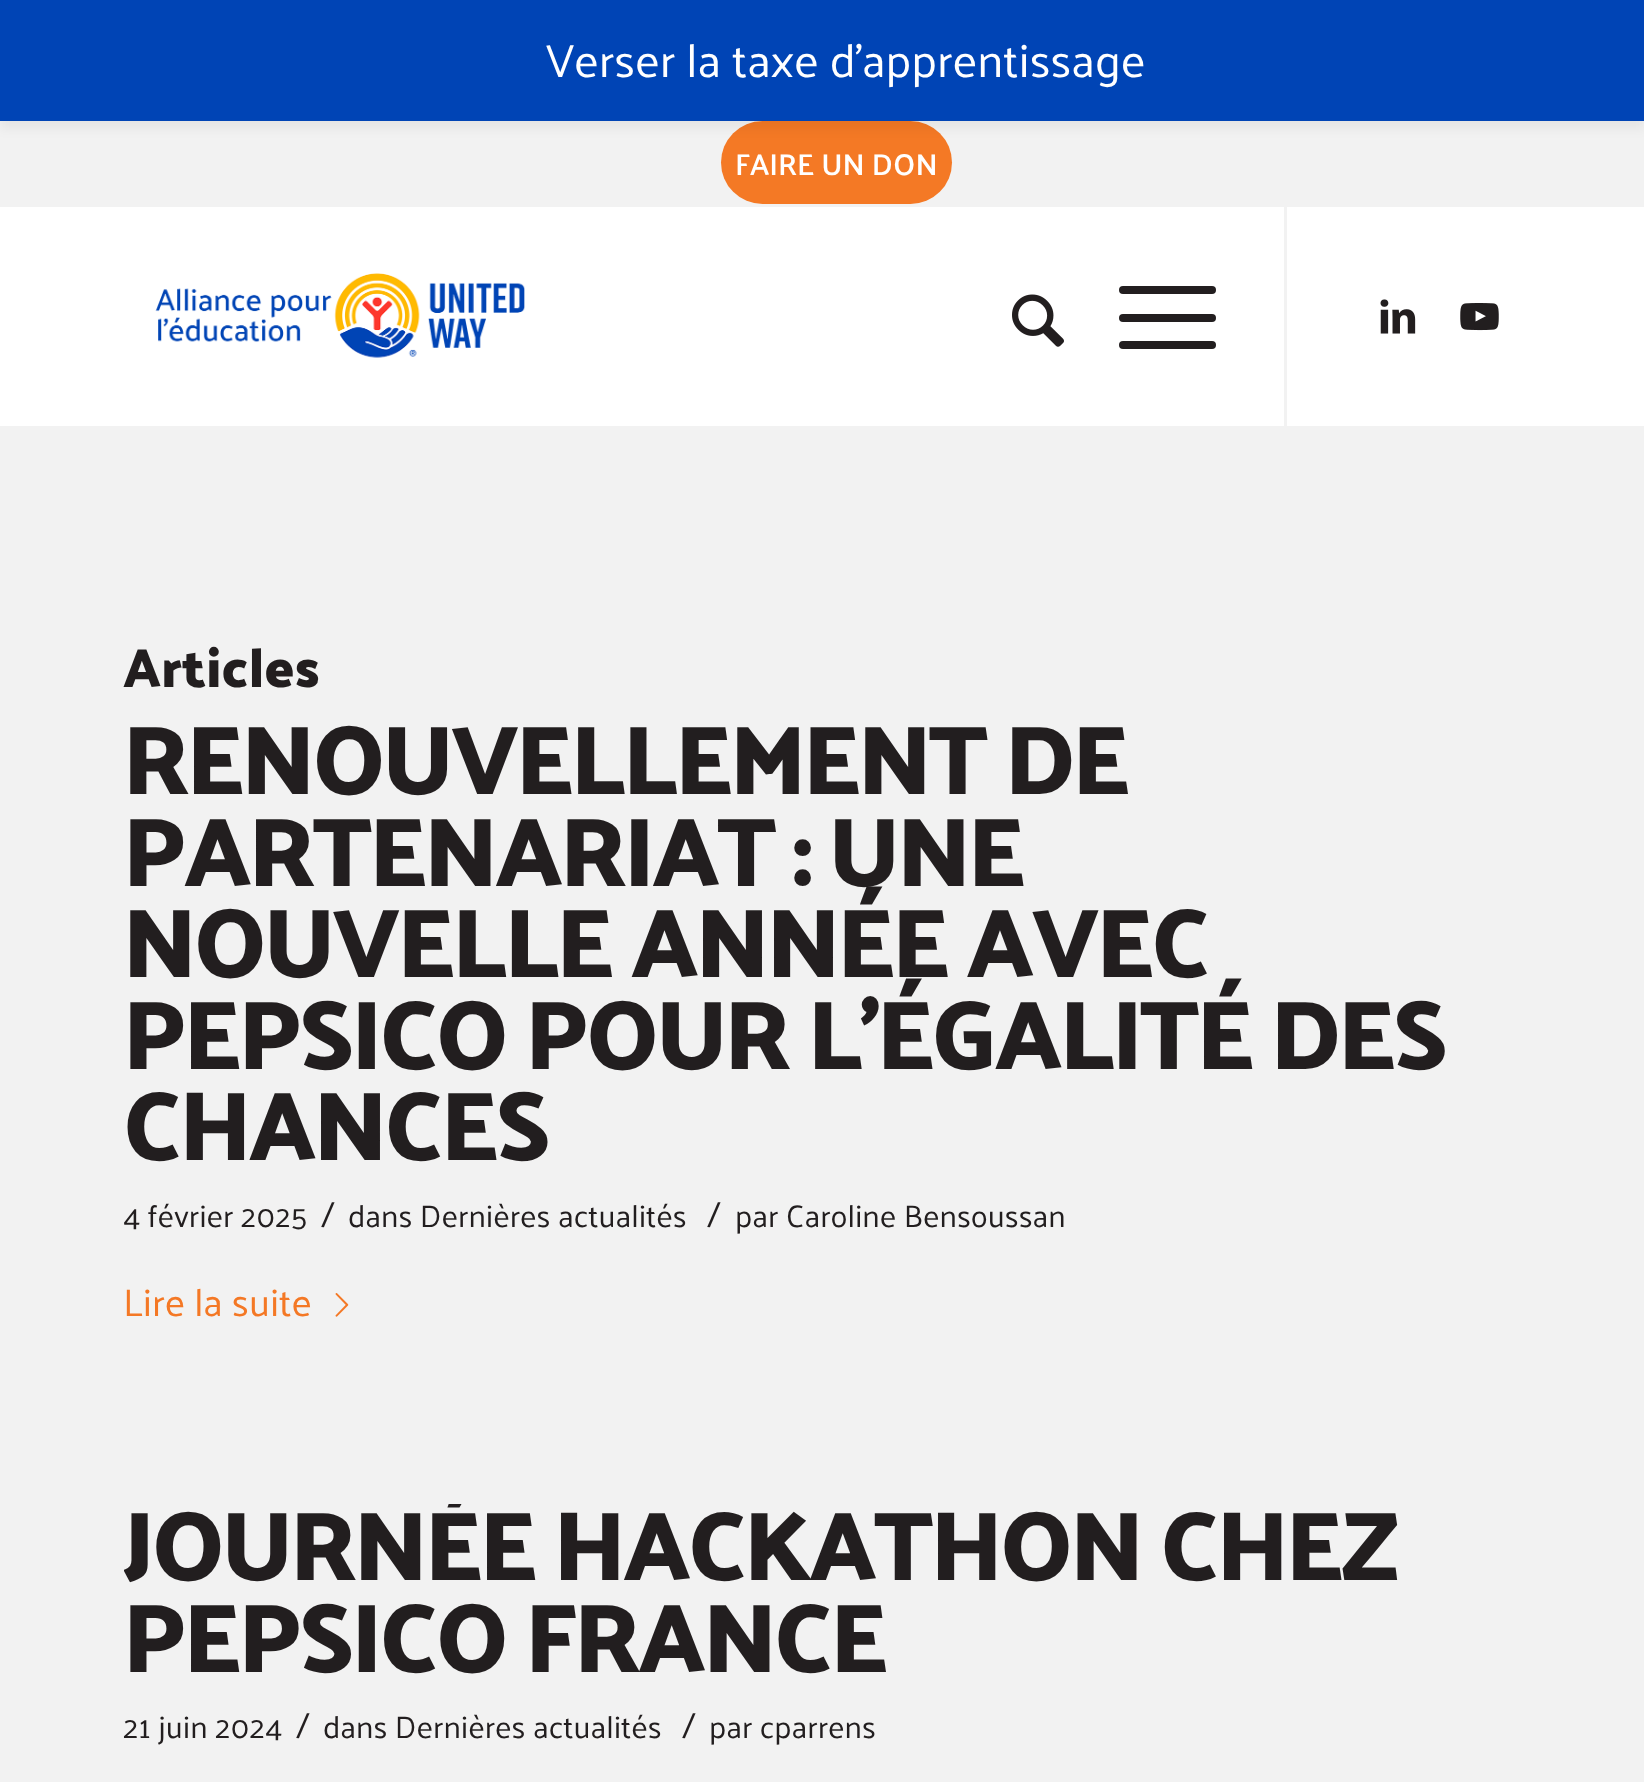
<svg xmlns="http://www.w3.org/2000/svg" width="1644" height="1782">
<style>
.a{font:46.75px Palanquin;fill:#fff}
.b{font:600 30.25px Palanquin;fill:#fff}
.c{font:600 55px Palanquin Dark;fill:#221e1f}
.d{font:600 98.25px Palanquin Dark;letter-spacing:-2.75px;fill:#221e1f}
.e{font:31.25px Palanquin;fill:#221e1f}
.f{font:35px Palanquin;fill:#221e1f}
.g{font:38.5px Palanquin;fill:#f47825}
</style>
<defs>
<clipPath id="clip1"><path d="M124 1504h1397v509H124z"/></clipPath>
</defs>
<rect width="100%" height="100%" fill="#f2f2f2"/>
<rect fill="#f47925" x="721" y="121" width="231" height="83" rx="41.5"/>
<path fill="#0000000d" filter="blur(5.5px)" d="M0 8h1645v121H0z"/>
<path fill="#0044b5" d="M0 0h1644v121H0z"/>
<path fill="#fff" d="M0 207h1644v219H0z"/>
<image href="1.png" x="155" y="273" width="370" height="85"/>
<path fill="#f2f2f2" d="M1284 206h3v220H1284z"/>
<image href="2.png" x="1012" y="294" width="52" height="53"/>
<rect fill="#221e1f" x="1119" y="314" width="97" height="8" rx="4"/>
<rect fill="#221e1f" x="1119" y="286" width="97" height="8" rx="4"/>
<rect fill="#221e1f" x="1119" y="341" width="97" height="8" rx="4"/>
<image href="3.png" x="1380" y="299" width="36" height="35"/>
<image href="4.png" x="1460" y="303" width="39" height="28"/>
<image href="5.png" x="335" y="1293" width="14" height="24"/>
<text class="a" x="546" y="77">Verser la taxe d'apprentissage</text>
<text class="b" x="735" y="175">FAIRE UN DON</text>
<text class="c" x="123" y="687">Articles</text>
<text class="d" x="123" y="794">RENOUVELLEMENT DE</text>
<text class="d" x="123" y="886">PARTENARIAT : UNE</text>
<text class="d" x="123" y="977">NOUVELLE ANNÉE AVEC</text>
<text class="d" x="123" y="1069">PEPSICO POUR L’ÉGALITÉ DES</text>
<text class="d" x="123" y="1160">CHANCES</text>
<text class="e" x="123" y="1227">4 février 2025</text>
<text class="f" x="321" y="1227">/</text>
<text class="e" x="348" y="1227">dans Dernières actualités</text>
<text class="f" x="707" y="1227">/</text>
<text class="e" x="735" y="1227">par Caroline Bensoussan</text>
<text class="g" x="123" y="1316">Lire la suite</text>
<g clip-path="url(#clip1)">
<text class="d" x="123" y="1580">JOURNÉE HACKATHON CHEZ</text>
</g>
<text class="d" x="123" y="1672">PEPSICO FRANCE</text>
<text class="e" x="123" y="1738">21 juin 2024</text>
<text class="f" x="296" y="1738">/</text>
<text class="e" x="323" y="1738">dans Dernières actualités</text>
<text class="f" x="682" y="1738">/</text>
<text class="e" x="709" y="1738">par cparrens</text>
</svg>
